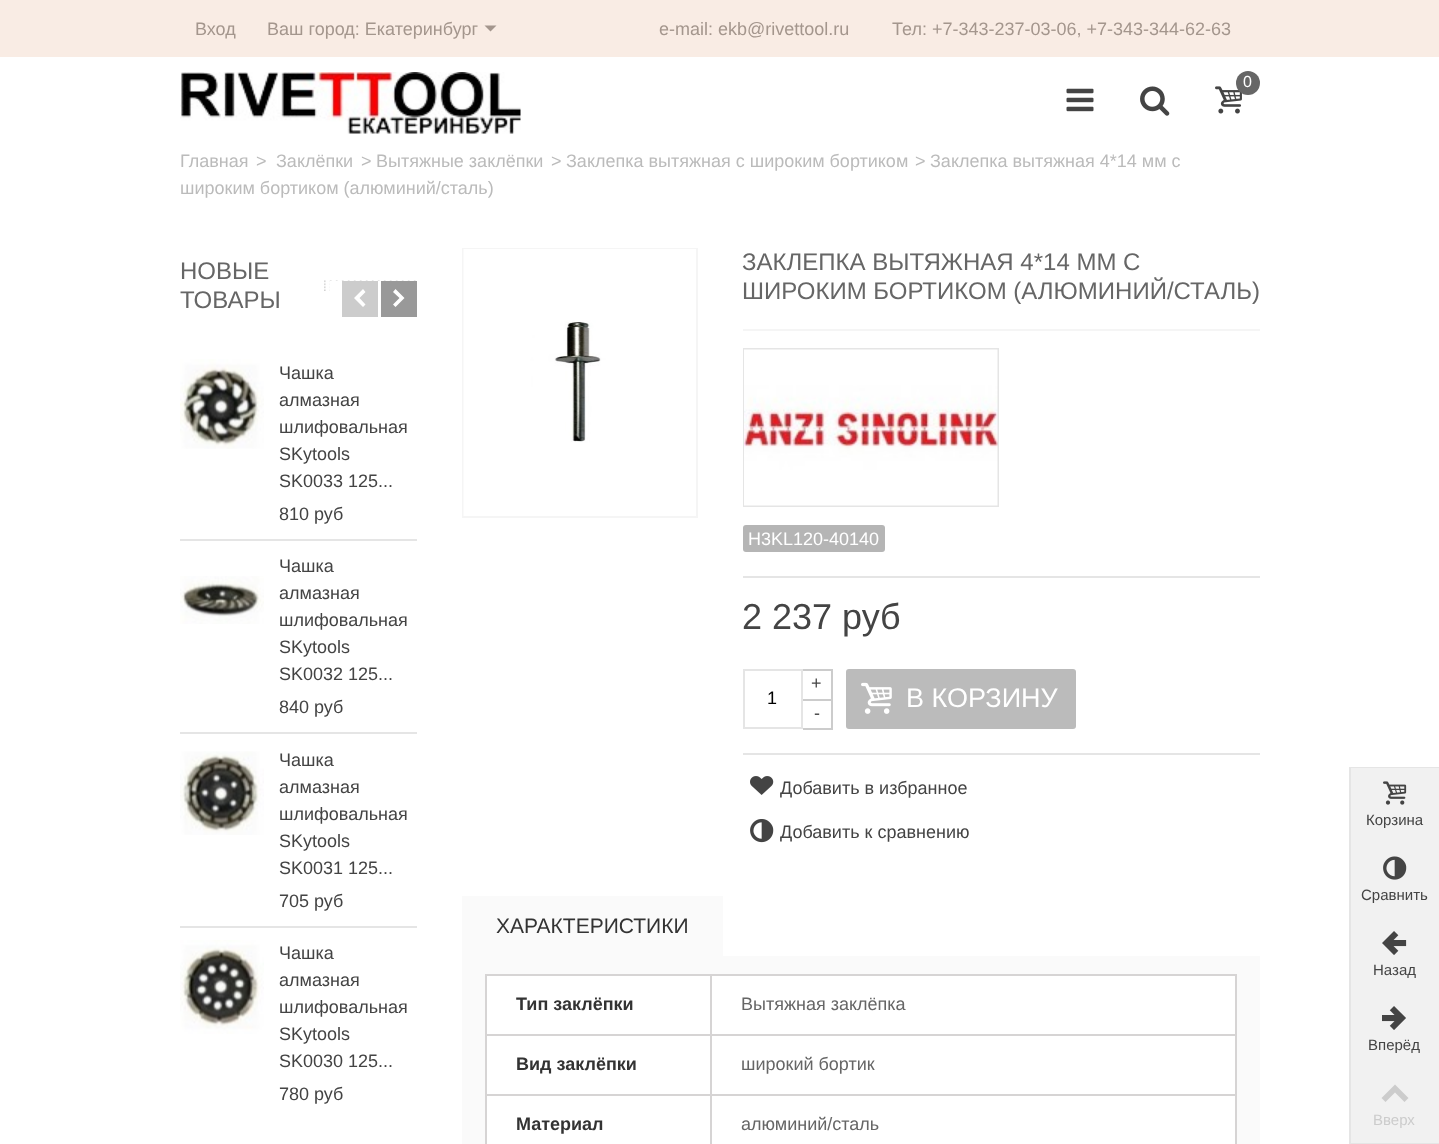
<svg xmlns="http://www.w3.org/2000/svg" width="1439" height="1144">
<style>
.a{font:18px Liberation Sans;fill:#a4968d}
.b{font:16px Liberation Sans;fill:#fff}
.c{font:18px Liberation Sans;fill:#bbb}
.d{font:24px Liberation Sans;fill:#666}
.e{font:18px Liberation Sans;fill:#444}
.f{font:18px Liberation Sans;fill:#fff}
.g{font:36px Liberation Sans;fill:#444}
.h{font:18px Liberation Sans;fill:#000}
.i{font:27px Liberation Sans;fill:#fff}
.j{font:21px Liberation Sans;fill:#333}
.k{font:bold 18px Liberation Sans;fill:#333}
.l{font:18px Liberation Sans;fill:#666}
.m{font:15px Liberation Sans;fill:#444}
.n{font:15px Liberation Sans;fill:#ccc}
</style>
<rect width="100%" height="100%" fill="#fff"/>
<path fill="#f9ece4" d="M0 0h1439v57H0z"/>
<path fill="#a4968d" d="M484.5 25.5h12l-6 6z"/>
<image href="1.png" x="180" y="72" width="341" height="62"/>
<image href="2.png" x="1215" y="86" width="27" height="28"/>
<circle fill="#666" cx="1248" cy="83" r="12"/>
<image href="3.png" x="1066" y="88" width="28" height="24"/>
<image href="4.png" x="1140" y="86" width="30" height="30"/>
<image href="5.png" x="324" y="280" width="92" height="11"/>
<path fill="#fff" d="M330 281h50v10H330z"/>
<path fill="#ccc" d="M342 281h36v36H342z"/>
<path fill="#fff" d="M354 298l9-9l2.5 3l-6 6l6 6.5l-2.5 2.5z"/>
<path fill="#999" d="M381 281h36v36H381z"/>
<path fill="#fff" d="M393 304.5l6.5-6.5l-6.5-6l2.5-3l9 9l-9 9z"/>
<path fill="#e5e5e5" d="M180 539h237v2H180z"/>
<image href="6.png" x="180" y="359" width="84" height="90"/>
<path fill="#e5e5e5" d="M180 732h237v2H180z"/>
<image href="7.png" x="180" y="576" width="84" height="48"/>
<path fill="#e5e5e5" d="M180 926h237v2H180z"/>
<image href="8.png" x="180" y="751" width="84" height="84"/>
<image href="9.png" x="180" y="940" width="84" height="94"/>
<path fill="none" stroke="#f5f5f5" stroke-width="2" d="M463 249h234v268H463z"/>
<image href="10.png" x="463" y="249" width="233" height="267"/>
<path fill="#f5f5f5" d="M743 329h517v2H743z"/>
<path fill="none" stroke="#e5e5e5" stroke-width="2" d="M744 349h254v157H744z"/>
<image href="11.png" x="744" y="349" width="254" height="157"/>
<rect fill="#b5b5b5" x="743" y="525" width="142" height="27" rx="3"/>
<path fill="#e5e5e5" d="M743 576h517v2H743z"/>
<path fill="#e5e5e5" d="M743 753h517v2H743z"/>
<path fill="#ccc" d="M803 669h30v2H803z"/>
<path fill="#ccc" d="M831 669h2v30H831z"/>
<path fill="none" stroke="#e5e5e5" stroke-width="2" d="M744 670h58v58H744z"/>
<path fill="#ccc" d="M803 699h30v2H803z"/>
<path fill="#ccc" d="M831 699h2v30H831z"/>
<path fill="#ccc" d="M803 728h30v2H803z"/>
<rect fill="#bbb" x="846" y="669" width="230" height="60" rx="3"/>
<image href="12.png" x="861" y="682" width="31" height="32"/>
<image href="13.png" x="750" y="776" width="24" height="19"/>
<image href="14.png" x="750" y="819" width="24" height="24"/>
<path fill="#fafafa" d="M462 896h261v60H462z"/>
<path fill="#fafafa" d="M462 956h798v188H462z"/>
<path fill="#fff" d="M487 976h748v168H487z"/>
<path fill="#d6d4d4" d="M485 974h751v2H485z"/>
<path fill="#d6d4d4" d="M1235 974h2v170H1235z"/>
<path fill="#d6d4d4" d="M485 974h2v170H485z"/>
<path fill="#d6d4d4" d="M710 1034h526v2H710z"/>
<path fill="#d6d4d4" d="M710 1094h526v2H710z"/>
<path fill="#d6d4d4" d="M710 1094h2v50H710z"/>
<path fill="#d6d4d4" d="M485 1094h226v2H485z"/>
<path fill="#d6d4d4" d="M710 1034h2v61H710z"/>
<path fill="#d6d4d4" d="M485 1034h226v2H485z"/>
<path fill="#d6d4d4" d="M710 974h2v61H710z"/>
<path fill="#f1f1f1" d="M1351 768h88v375H1351z"/>
<path fill="#e5e5e5" d="M1349 767h90v1H1349z"/>
<path fill="#e5e5e5" d="M1349 1143h90v1H1349z"/>
<path fill="#e5e5e5" d="M1349 768h2v375H1349z"/>
<image href="15.png" x="1383" y="781" width="24" height="24"/>
<image href="16.png" x="1383" y="856" width="24" height="24"/>
<image href="17.png" x="1382" y="931" width="25" height="24"/>
<image href="18.png" x="1382" y="1006" width="24" height="24"/>
<path fill="#ccc" d="M1381.5 1098l13.5-13.5l13.5 13.5l-4 4l-9.5-9.5l-9.5 9.5z"/>
<text class="a" x="195" y="35">Вход</text>
<text class="a" x="267" y="35">Ваш город: Екатеринбург</text>
<text class="a" x="659" y="35">e-mail: ekb@rivettool.ru</text>
<text class="a" x="892" y="35">Тел: +7-343-237-03-06, +7-343-344-62-63</text>
<text class="b" x="1243" y="87">0</text>
<text class="c" x="180" y="167">Главная</text>
<text class="c" x="256" y="167">&gt;</text>
<text class="c" x="276" y="167">Заклёпки</text>
<text class="c" x="361" y="167">&gt;</text>
<text class="c" x="376" y="167">Вытяжные заклёпки</text>
<text class="c" x="551" y="167">&gt;</text>
<text class="c" x="566" y="167">Заклепка вытяжная с широким бортиком</text>
<text class="c" x="915" y="167">&gt;</text>
<text class="c" x="930" y="167">Заклепка вытяжная 4*14 мм с</text>
<text class="c" x="180" y="194">широким бортиком (алюминий/сталь)</text>
<text class="d" x="180" y="279">НОВЫЕ</text>
<text class="d" x="180" y="308">ТОВАРЫ</text>
<text class="e" x="279" y="379">Чашка</text>
<text class="e" x="279" y="406">алмазная</text>
<text class="e" x="279" y="433">шлифовальная</text>
<text class="e" x="279" y="460">SKytools</text>
<text class="e" x="279" y="487">SK0033 125...</text>
<text class="e" x="279" y="520">810 руб</text>
<text class="e" x="279" y="572">Чашка</text>
<text class="e" x="279" y="599">алмазная</text>
<text class="e" x="279" y="626">шлифовальная</text>
<text class="e" x="279" y="653">SKytools</text>
<text class="e" x="279" y="680">SK0032 125...</text>
<text class="e" x="279" y="713">840 руб</text>
<text class="e" x="279" y="766">Чашка</text>
<text class="e" x="279" y="793">алмазная</text>
<text class="e" x="279" y="820">шлифовальная</text>
<text class="e" x="279" y="847">SKytools</text>
<text class="e" x="279" y="874">SK0031 125...</text>
<text class="e" x="279" y="907">705 руб</text>
<text class="e" x="279" y="959">Чашка</text>
<text class="e" x="279" y="986">алмазная</text>
<text class="e" x="279" y="1013">шлифовальная</text>
<text class="e" x="279" y="1040">SKytools</text>
<text class="e" x="279" y="1067">SK0030 125...</text>
<text class="e" x="279" y="1100">780 руб</text>
<text class="d" x="742" y="270">ЗАКЛЕПКА ВЫТЯЖНАЯ 4*14 ММ С</text>
<text class="d" x="742" y="299">ШИРОКИМ БОРТИКОМ (АЛЮМИНИЙ/СТАЛЬ)</text>
<text class="f" x="748" y="545">H3KL120-40140</text>
<text class="g" x="742" y="629">2 237 руб</text>
<text class="e" x="811" y="689">+</text>
<text class="h" x="767" y="704">1</text>
<text class="e" x="814" y="719">-</text>
<text class="i" x="906" y="707">В КОРЗИНУ</text>
<text class="e" x="780" y="794">Добавить в избранное</text>
<text class="e" x="780" y="838">Добавить к сравнению</text>
<text class="j" x="496" y="933">ХАРАКТЕРИСТИКИ</text>
<text class="k" x="516" y="1010">Тип заклёпки</text>
<text class="l" x="741" y="1010">Вытяжная заклёпка</text>
<text class="k" x="516" y="1070">Вид заклёпки</text>
<text class="l" x="741" y="1070">широкий бортик</text>
<text class="k" x="516" y="1130">Материал</text>
<text class="l" x="741" y="1130">алюминий/сталь</text>
<text class="m" x="1366" y="825">Корзина</text>
<text class="m" x="1361" y="900">Сравнить</text>
<text class="m" x="1373" y="975">Назад</text>
<text class="m" x="1368" y="1050">Вперёд</text>
<text class="n" x="1373" y="1125">Вверх</text>
</svg>
